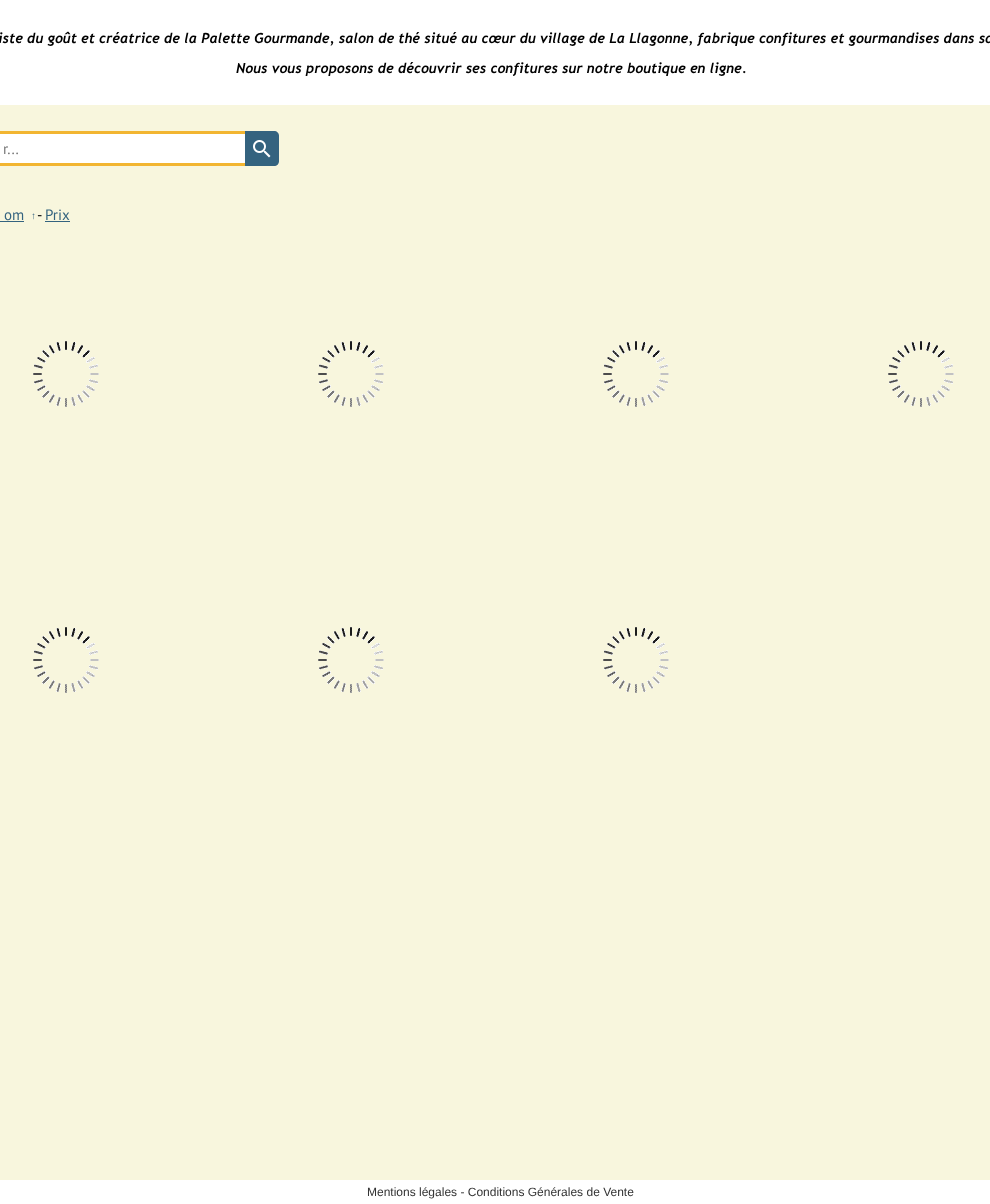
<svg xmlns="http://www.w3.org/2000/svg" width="990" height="1204">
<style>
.a{font:italic bold 14px Trebuchet MS;fill:#000}
.b{font:15px PT Sans;fill:#757575}
.c{font:15px PT Sans;fill:#34637f}
.d{font:10px Liberation Serif;fill:#34637f}
.e{font:15px PT Sans;fill:#000}
.f{font:12px Liberation Sans;fill:#333}
</style>
<rect width="100%" height="100%" fill="#fff"/>
<path fill="#f8f6dd" d="M0 105h990v1075H0z"/>
<path fill="#fff" d="M0 134h245v29H0z"/>
<path fill="#f2b531" fill-rule="evenodd" d="M-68 131h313v35h-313c-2 0-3-1-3-3v-29c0-2 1-3 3-3zm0 3h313v29h-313z"/>
<path fill="#34637f" d="M245 131h29c3 0 5 2 5 5v25c0 3-2 5-5 5h-29z"/>
<image href="1.png" x="253" y="140" width="18" height="18"/>
<path fill="#34637f" d="M0 221h24v1H0z"/>
<path fill="#34637f" d="M45 221h25v1H45z"/>
<image href="2.png" x="33" y="341" width="66" height="66"/>
<image href="2.png" x="318" y="341" width="66" height="66"/>
<image href="2.png" x="603" y="341" width="66" height="66"/>
<image href="2.png" x="888" y="341" width="66" height="66"/>
<image href="2.png" x="33" y="627" width="66" height="66"/>
<image href="2.png" x="318" y="627" width="66" height="66"/>
<image href="2.png" x="603" y="627" width="66" height="66"/>
<text class="a" x="-2" y="43">iste du goût et créatrice de la Palette Gourmande, salon de thé situé au cœur du village de La Llagonne, fabrique confitures et gourmandises dans so</text>
<text class="a" x="236" y="73">Nous vous proposons de découvrir ses confitures sur notre boutique en ligne.</text>
<text class="b" x="3" y="154">r...</text>
<text class="c" x="4" y="220">om</text>
<text class="d" x="31" y="219">↑</text>
<text class="e" x="37" y="220">-</text>
<text class="c" x="45" y="220">Prix</text>
<text class="f" x="367" y="1196">Mentions légales - Conditions Générales de Vente</text>
</svg>
